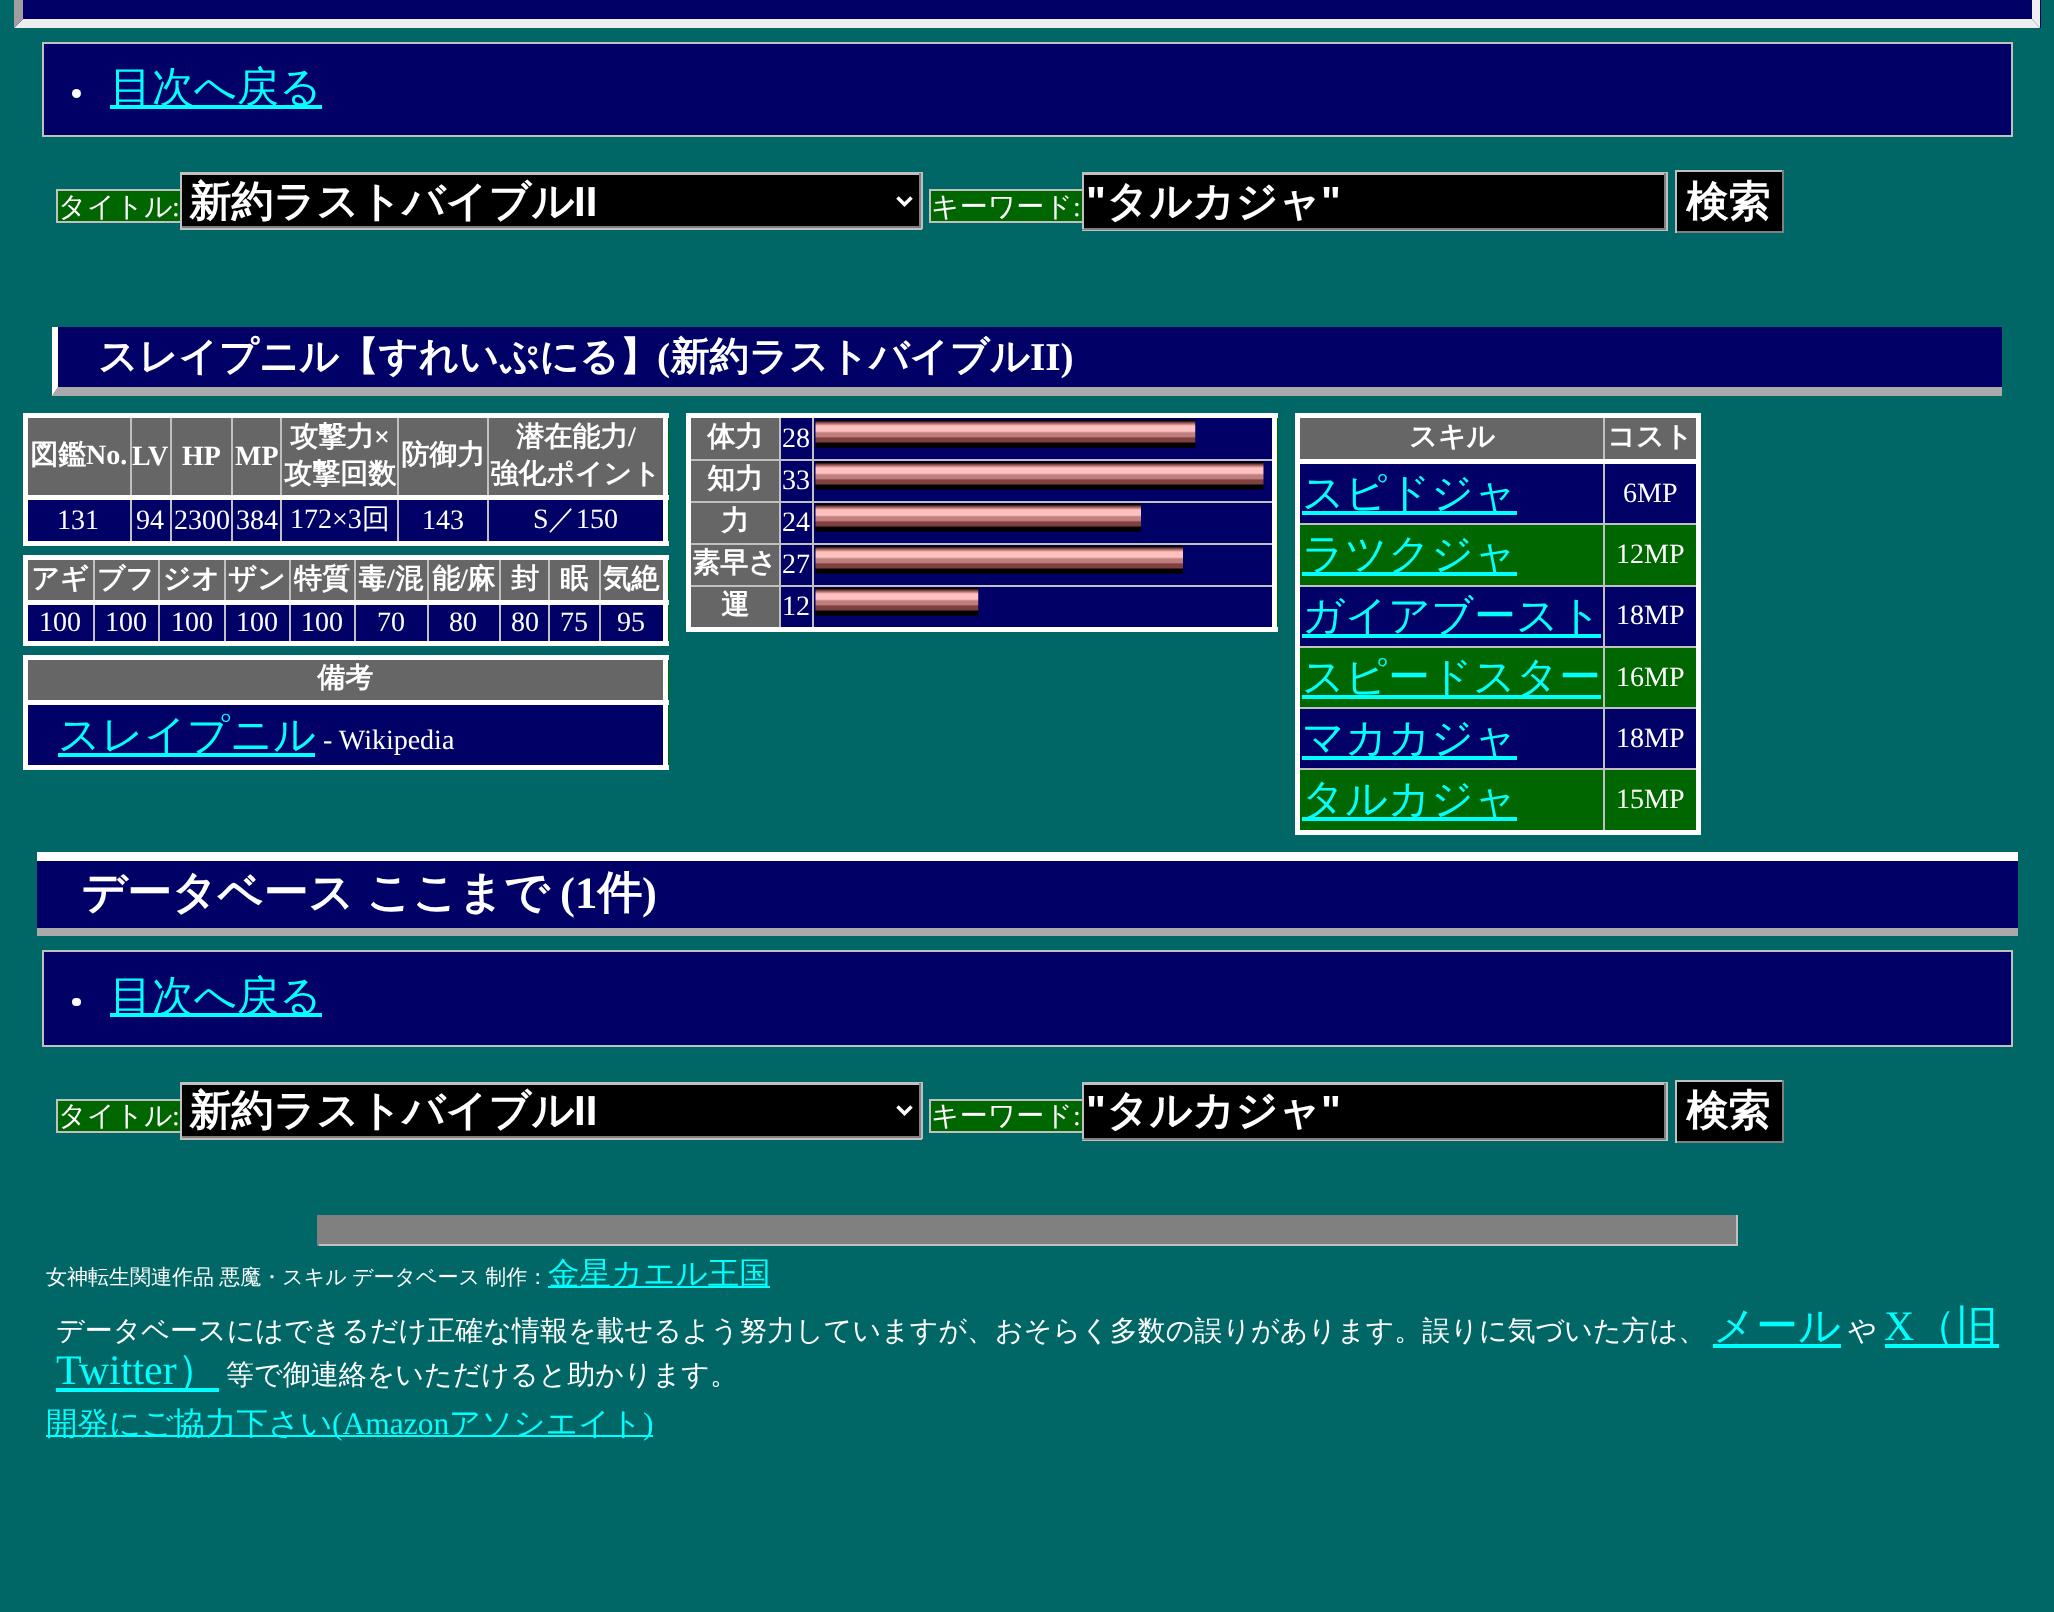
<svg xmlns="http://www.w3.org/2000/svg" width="2054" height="1612">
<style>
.a{font:500 42px WenQuanYi Zen Hei;fill:#0ff}
.b{font:500 28px WenQuanYi Zen Hei;fill:#fff}
.c{font:28px Liberation Serif;fill:#fff}
.d{font:bold 42px WenQuanYi Zen Hei;fill:#fff}
.e{font:bold 42px Liberation Sans;fill:#fff}
.f{font:bold 39.25px WenQuanYi Zen Hei;fill:#fff}
.g{font:bold 39.25px Liberation Serif;fill:#fff}
.h{font:bold 28px WenQuanYi Zen Hei;fill:#fff}
.i{font:bold 28px Liberation Serif;fill:#fff}
.j{font:bold 44.75px WenQuanYi Zen Hei;fill:#fff}
.k{font:bold 44.75px Liberation Serif;fill:#fff}
.l{font:500 21px WenQuanYi Zen Hei;fill:#fff}
.m{font:500 31.5px WenQuanYi Zen Hei;fill:#0ff}
.n{font:42px Liberation Serif;fill:#0ff}
.o{font:31.5px Liberation Serif;fill:#0ff}
</style>
<rect width="100%" height="100%" fill="#066"/>
<path fill="#006" d="M14 0h2027v28H14z"/>
<path fill="#eee" d="M2040-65v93l-8-9v-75z"/>
<path fill="#eee" d="M2040 28h-2026l9-9h2009z"/>
<path fill="#9f9f9f" d="M14 28v-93l9 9v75z"/>
<path fill="#006" stroke="#c0c0c0" stroke-width="2" d="M43 43h1969v93H43z"/>
<circle fill="#fff" cx="76.5" cy="93.5" r="4.5"/>
<path fill="#0ff" d="M110 105h212v4H110z"/>
<path fill="#060" d="M58 191h122v30H58z"/>
<path fill="#c0c0c0" d="M56 189h124v2H56z"/>
<path fill="#c0c0c0" d="M56 221h124v2H56z"/>
<path fill="#c0c0c0" d="M56 189h2v33H56z"/>
<path fill="#c0c0c0" d="M180 172h742v1H180z"/>
<path fill="#c0c0c0" d="M921 172h2v57H921z"/>
<path fill="#c0c0c0" d="M180 228h742v2H180z"/>
<path fill="#000" d="M182 175h737v51H182z"/>
<path fill="#c0c0c0" d="M180 173h741v2H180z"/>
<path fill="#808080" d="M919 173h2v55H919z"/>
<path fill="#808080" d="M180 226h741v2H180z"/>
<path fill="#c0c0c0" d="M180 173h2v55H180z"/>
<path fill="none" stroke="#fff" stroke-width="3.5" d="M897.5 197.5l7 7l7-7"/>
<path fill="#060" d="M931 191h151v30H931z"/>
<path fill="#c0c0c0" d="M929 189h153v2H929z"/>
<path fill="#c0c0c0" d="M929 221h153v2H929z"/>
<path fill="#c0c0c0" d="M929 189h2v33H929z"/>
<path fill="#c0c0c0" d="M1082 172h586v1H1082z"/>
<path fill="#c0c0c0" d="M1666 172h2v59H1666z"/>
<path fill="#c0c0c0" d="M1082 229h586v2H1082z"/>
<path fill="#000" d="M1084 175h580v53H1084z"/>
<path fill="#c0c0c0" d="M1082 173h584v2H1082z"/>
<path fill="#808080" d="M1664 173h2v56H1664z"/>
<path fill="#808080" d="M1082 228h584v2H1082z"/>
<path fill="#c0c0c0" d="M1082 173h2v56H1082z"/>
<path fill="#000" d="M1677 172h105v59H1677z"/>
<path fill="#c0c0c0" d="M1675 170h108v2H1675z"/>
<path fill="#808080" d="M1782 170h2v63H1782z"/>
<path fill="#808080" d="M1675 231h108v2H1675z"/>
<path fill="#c0c0c0" d="M1675 170h2v63H1675z"/>
<path fill="#006" d="M53 327h1949v68H53z"/>
<path fill="#aaa" d="M2002 396h-1950l6-9h1944z"/>
<path fill="#fff" d="M52 396v-69h6v60z"/>
<path fill="#060" d="M668 418h1v123H668z"/>
<path fill="#666" d="M28 418h635v77H28z"/>
<path fill="#006" d="M28 500h635v41H28z"/>
<path fill="#c0c0c0" d="M130 415h2v129H130z"/>
<path fill="#c0c0c0" d="M170 415h2v129H170z"/>
<path fill="#c0c0c0" d="M231 415h2v129H231z"/>
<path fill="#c0c0c0" d="M280 415h2v129H280z"/>
<path fill="#c0c0c0" d="M397 415h2v129H397z"/>
<path fill="#c0c0c0" d="M487 415h2v129H487z"/>
<path fill="#fff" d="M23 413h646v5H23z"/>
<path fill="#fff" d="M663 413h5v133H663z"/>
<path fill="#fff" d="M23 541h646v5H23z"/>
<path fill="#fff" d="M23 413h5v133H23z"/>
<path fill="#fff" d="M23 495h646v5H23z"/>
<path fill="#060" d="M668 560h1v81H668z"/>
<path fill="#666" d="M28 560h635v40H28z"/>
<path fill="#006" d="M28 605h635v36H28z"/>
<path fill="#c0c0c0" d="M93 557h2v87H93z"/>
<path fill="#c0c0c0" d="M158 557h2v87H158z"/>
<path fill="#c0c0c0" d="M224 557h2v87H224z"/>
<path fill="#c0c0c0" d="M289 557h2v87H289z"/>
<path fill="#c0c0c0" d="M354 557h2v87H354z"/>
<path fill="#c0c0c0" d="M427 557h2v87H427z"/>
<path fill="#c0c0c0" d="M499 557h2v87H499z"/>
<path fill="#c0c0c0" d="M548 557h2v87H548z"/>
<path fill="#c0c0c0" d="M599 557h2v87H599z"/>
<path fill="#fff" d="M23 555h646v5H23z"/>
<path fill="#fff" d="M663 555h5v91H663z"/>
<path fill="#fff" d="M23 641h646v5H23z"/>
<path fill="#fff" d="M23 555h5v91H23z"/>
<path fill="#fff" d="M23 600h646v5H23z"/>
<path fill="#060" d="M668 660h1v105H668z"/>
<path fill="#fff" d="M23 655h646v5H23z"/>
<path fill="#fff" d="M663 655h5v115H663z"/>
<path fill="#fff" d="M23 765h646v5H23z"/>
<path fill="#fff" d="M23 655h5v115H23z"/>
<path fill="#666" d="M28 660h635v40H28z"/>
<path fill="#fff" d="M23 700h646v5H23z"/>
<path fill="#006" d="M28 705h635v60H28z"/>
<path fill="#0ff" d="M58 753h257v4H58z"/>
<path fill="#060" d="M1277 418h1v209H1277z"/>
<path fill="#c0c0c0" d="M812 459h464v2H812z"/>
<path fill="#006" d="M781 461h491v40H781z"/>
<path fill="#c0c0c0" d="M812 501h464v2H812z"/>
<path fill="#006" d="M781 503h491v40H781z"/>
<path fill="#c0c0c0" d="M812 543h464v2H812z"/>
<path fill="#006" d="M781 545h491v40H781z"/>
<path fill="#c0c0c0" d="M812 585h464v2H812z"/>
<path fill="#006" d="M781 587h491v40H781z"/>
<path fill="#c0c0c0" d="M812 585h2v45H812z"/>
<path fill="#c0c0c0" d="M779 585h35v2H779z"/>
<path fill="#c0c0c0" d="M812 543h2v43H812z"/>
<path fill="#c0c0c0" d="M779 543h35v2H779z"/>
<path fill="#c0c0c0" d="M812 501h2v43H812z"/>
<path fill="#c0c0c0" d="M779 501h35v2H779z"/>
<path fill="#c0c0c0" d="M812 459h2v43H812z"/>
<path fill="#c0c0c0" d="M779 459h35v2H779z"/>
<path fill="#c0c0c0" d="M779 585h2v45H779z"/>
<path fill="#c0c0c0" d="M688 585h93v2H688z"/>
<path fill="#c0c0c0" d="M779 543h2v43H779z"/>
<path fill="#c0c0c0" d="M688 543h93v2H688z"/>
<path fill="#c0c0c0" d="M779 501h2v43H779z"/>
<path fill="#c0c0c0" d="M688 501h93v2H688z"/>
<path fill="#c0c0c0" d="M779 459h2v43H779z"/>
<path fill="#c0c0c0" d="M688 459h93v2H688z"/>
<path fill="#c0c0c0" d="M779 415h2v45H779z"/>
<path fill="#006" d="M781 418h491v41H781z"/>
<path fill="#c0c0c0" d="M812 415h2v45H812z"/>
<path fill="#fff" d="M686 413h592v5H686z"/>
<path fill="#fff" d="M1272 413h5v219H1272z"/>
<path fill="#fff" d="M686 627h592v5H686z"/>
<path fill="#fff" d="M686 413h5v219H686z"/>
<path fill="#666" d="M691 418h88v41H691z"/>
<image href="1.png" x="815" y="419" width="381" height="29"/>
<path fill="#666" d="M691 461h88v40H691z"/>
<image href="2.png" x="815" y="461" width="449" height="29"/>
<path fill="#666" d="M691 503h88v40H691z"/>
<image href="3.png" x="815" y="503" width="326" height="29"/>
<path fill="#666" d="M691 545h88v40H691z"/>
<image href="4.png" x="815" y="545" width="368" height="29"/>
<path fill="#666" d="M691 587h88v40H691z"/>
<image href="5.png" x="815" y="587" width="164" height="29"/>
<path fill="#060" d="M1300 525h396v305H1300z"/>
<path fill="#666" d="M1300 418h396v41H1300z"/>
<path fill="#006" d="M1300 464h396v59H1300z"/>
<path fill="#c0c0c0" d="M1603 523h96v2H1603z"/>
<path fill="#c0c0c0" d="M1603 585h96v2H1603z"/>
<path fill="#006" d="M1300 587h396v59H1300z"/>
<path fill="#c0c0c0" d="M1603 646h96v2H1603z"/>
<path fill="#c0c0c0" d="M1603 707h96v2H1603z"/>
<path fill="#006" d="M1300 709h396v59H1300z"/>
<path fill="#c0c0c0" d="M1603 768h96v2H1603z"/>
<path fill="#c0c0c0" d="M1603 768h2v65H1603z"/>
<path fill="#c0c0c0" d="M1297 768h308v2H1297z"/>
<path fill="#c0c0c0" d="M1603 707h2v63H1603z"/>
<path fill="#c0c0c0" d="M1297 707h308v2H1297z"/>
<path fill="#c0c0c0" d="M1603 646h2v63H1603z"/>
<path fill="#c0c0c0" d="M1297 646h308v2H1297z"/>
<path fill="#c0c0c0" d="M1603 585h2v63H1603z"/>
<path fill="#c0c0c0" d="M1297 585h308v2H1297z"/>
<path fill="#c0c0c0" d="M1603 523h2v63H1603z"/>
<path fill="#c0c0c0" d="M1297 523h308v2H1297z"/>
<path fill="#c0c0c0" d="M1603 415h2v110H1603z"/>
<path fill="#fff" d="M1295 413h406v5H1295z"/>
<path fill="#fff" d="M1696 413h5v422H1696z"/>
<path fill="#fff" d="M1295 830h406v5H1295z"/>
<path fill="#fff" d="M1295 413h5v422H1295z"/>
<path fill="#fff" d="M1295 459h406v5H1295z"/>
<path fill="#0ff" d="M1302 511h215v4H1302z"/>
<path fill="#0ff" d="M1302 572h215v4H1302z"/>
<path fill="#0ff" d="M1302 634h299v4H1302z"/>
<path fill="#0ff" d="M1302 695h299v4H1302z"/>
<path fill="#0ff" d="M1302 756h215v4H1302z"/>
<path fill="#0ff" d="M1302 817h215v4H1302z"/>
<path fill="#006" d="M37 861h1981v67H37z"/>
<path fill="#fff" d="M37 852h1981v9H37z"/>
<path fill="#aaa" d="M37 928h1981v8H37z"/>
<path fill="#006" stroke="#c0c0c0" stroke-width="2" d="M43 951h1969v95H43z"/>
<rect fill="#fff" x="72" y="998" width="9" height="8" rx="4"/>
<path fill="#0ff" d="M110 1013h212v4H110z"/>
<path fill="#060" d="M58 1101h122v30H58z"/>
<path fill="#c0c0c0" d="M56 1099h124v2H56z"/>
<path fill="#c0c0c0" d="M56 1131h124v2H56z"/>
<path fill="#c0c0c0" d="M56 1099h2v33H56z"/>
<path fill="#c0c0c0" d="M180 1082h742v1H180z"/>
<path fill="#c0c0c0" d="M921 1082h2v57H921z"/>
<path fill="#c0c0c0" d="M180 1138h742v2H180z"/>
<path fill="#000" d="M182 1085h737v51H182z"/>
<path fill="#c0c0c0" d="M180 1083h741v2H180z"/>
<path fill="#808080" d="M919 1083h2v55H919z"/>
<path fill="#808080" d="M180 1136h741v2H180z"/>
<path fill="#c0c0c0" d="M180 1083h2v55H180z"/>
<path fill="none" stroke="#fff" stroke-width="3.5" d="M897.5 1106.5l7 7l7-7"/>
<path fill="#060" d="M931 1101h151v30H931z"/>
<path fill="#c0c0c0" d="M929 1099h153v2H929z"/>
<path fill="#c0c0c0" d="M929 1131h153v2H929z"/>
<path fill="#c0c0c0" d="M929 1099h2v33H929z"/>
<path fill="#c0c0c0" d="M1082 1082h586v1H1082z"/>
<path fill="#c0c0c0" d="M1666 1082h2v59H1666z"/>
<path fill="#c0c0c0" d="M1082 1139h586v2H1082z"/>
<path fill="#000" d="M1084 1085h580v53H1084z"/>
<path fill="#c0c0c0" d="M1082 1083h584v2H1082z"/>
<path fill="#808080" d="M1664 1083h2v56H1664z"/>
<path fill="#808080" d="M1082 1138h584v2H1082z"/>
<path fill="#c0c0c0" d="M1082 1083h2v56H1082z"/>
<path fill="#000" d="M1677 1082h105v59H1677z"/>
<path fill="#c0c0c0" d="M1675 1080h108v2H1675z"/>
<path fill="#808080" d="M1782 1080h2v63H1782z"/>
<path fill="#808080" d="M1675 1141h108v2H1675z"/>
<path fill="#c0c0c0" d="M1675 1080h2v63H1675z"/>
<path fill="#808080" d="M319 1215h1417v29H319z"/>
<path fill="#c0c0c0" d="M1736 1215h2v31H1736z"/>
<path fill="#c0c0c0" d="M317 1244h1421v2H317z"/>
<path fill="#808080" d="M317 1215h2v31H317z"/>
<path fill="#0ff" d="M548 1286h222v2H548z"/>
<path fill="#0ff" d="M1713 1344h128v4H1713z"/>
<path fill="#0ff" d="M1885 1344h114v4H1885z"/>
<path fill="#0ff" d="M56 1388h163v4H56z"/>
<path fill="#0ff" d="M46 1435h607v2H46z"/>
<text class="a" x="110" y="101">目次へ戻る</text>
<text class="b" x="58" y="216">タイトル</text>
<text class="c" x="172" y="216">:</text>
<text class="d" x="189" y="216">新約ラストバイブル</text>
<text class="e" x="574" y="216">II</text>
<text class="b" x="931" y="216">キーワード</text>
<text class="c" x="1073" y="216">:</text>
<text class="e" x="1086" y="216">"</text>
<text class="d" x="1106" y="216">タルカジャ</text>
<text class="e" x="1321" y="216">"</text>
<text class="d" x="1686" y="216">検索</text>
<text class="f" x="98" y="370">スレイプニル【すれいぷにる】</text>
<text class="g" x="657" y="370">(</text>
<text class="f" x="670" y="370">新約ラストバイブル</text>
<text class="g" x="1030" y="370">II)</text>
<text class="h" x="30" y="464">図鑑</text>
<text class="i" x="86" y="464">No.</text>
<text class="i" x="132" y="465">LV</text>
<text class="i" x="182" y="465">HP</text>
<text class="i" x="235" y="465">MP</text>
<text class="h" x="290" y="446">攻撃力</text>
<text class="i" x="374" y="446">×</text>
<text class="h" x="284" y="483">攻撃回数</text>
<text class="h" x="401" y="464">防御力</text>
<text class="h" x="516" y="446">潜在能力</text>
<text class="i" x="628" y="446">/</text>
<text class="h" x="490" y="483">強化ポイント</text>
<text class="c" x="57" y="529">131</text>
<text class="c" x="136" y="529">94</text>
<text class="c" x="174" y="529">2300</text>
<text class="c" x="236" y="529">384</text>
<text class="c" x="290" y="528">172×3</text>
<text class="b" x="362" y="528">回</text>
<text class="c" x="422" y="529">143</text>
<text class="c" x="533" y="528">S</text>
<text class="b" x="548" y="528">／</text>
<text class="c" x="576" y="528">150</text>
<text class="h" x="31" y="588">アギ ブフ ジオ ザン 特質 毒</text>
<text class="i" x="387" y="588">/</text>
<text class="h" x="395" y="588">混</text>
<text class="h" x="432" y="588">能</text>
<text class="i" x="460" y="588">/</text>
<text class="h" x="467" y="588">麻</text>
<text class="h" x="511" y="588">封</text>
<text class="h" x="560" y="588">眠</text>
<text class="h" x="603" y="588">気絶</text>
<text class="c" x="39" y="631">100</text>
<text class="c" x="105" y="631">100</text>
<text class="c" x="171" y="631">100</text>
<text class="c" x="236" y="631">100</text>
<text class="c" x="301" y="631">100</text>
<text class="c" x="377" y="631">70</text>
<text class="c" x="449" y="631">80</text>
<text class="c" x="511" y="631">80</text>
<text class="c" x="560" y="631">75</text>
<text class="c" x="617" y="631">95</text>
<text class="h" x="317" y="687">備考</text>
<text class="a" x="58" y="749">スレイプニル</text>
<text class="c" x="323" y="749">- Wikipedia</text>
<text class="h" x="707" y="446">体力</text>
<text class="c" x="782" y="447">28</text>
<text class="h" x="707" y="488">知力</text>
<text class="c" x="782" y="489">33</text>
<text class="h" x="721" y="530">力</text>
<text class="c" x="782" y="531">24</text>
<text class="h" x="692" y="572">素早さ</text>
<text class="c" x="782" y="573">27</text>
<text class="h" x="721" y="614">運</text>
<text class="c" x="782" y="615">12</text>
<text class="h" x="1409" y="446">スキル</text>
<text class="h" x="1607" y="446">コスト</text>
<text class="a" x="1302" y="507">スピドジャ</text>
<text class="c" x="1623" y="502">6MP</text>
<text class="a" x="1302" y="568">ラツクジャ</text>
<text class="c" x="1616" y="563">12MP</text>
<text class="a" x="1302" y="630">ガイアブースト</text>
<text class="c" x="1616" y="624">18MP</text>
<text class="a" x="1302" y="691">スピードスター</text>
<text class="c" x="1616" y="686">16MP</text>
<text class="a" x="1302" y="752">マカカジャ</text>
<text class="c" x="1616" y="747">18MP</text>
<text class="a" x="1302" y="813">タルカジャ</text>
<text class="c" x="1616" y="808">15MP</text>
<text class="j" x="81" y="908" word-spacing="-1">データベース ここまで</text>
<text class="k" x="560" y="908">(1</text>
<text class="j" x="597" y="908">件</text>
<text class="k" x="642" y="908">)</text>
<text class="a" x="110" y="1010">目次へ戻る</text>
<text class="b" x="58" y="1125">タイトル</text>
<text class="c" x="172" y="1125">:</text>
<text class="d" x="189" y="1125">新約ラストバイブル</text>
<text class="e" x="574" y="1125">II</text>
<text class="b" x="931" y="1125">キーワード</text>
<text class="c" x="1073" y="1125">:</text>
<text class="e" x="1086" y="1125">"</text>
<text class="d" x="1106" y="1125">タルカジャ</text>
<text class="e" x="1321" y="1125">"</text>
<text class="d" x="1686" y="1125">検索</text>
<text class="l" x="46" y="1284" word-spacing="-1">女神転生関連作品 悪魔・スキル データベース 制作：</text>
<text class="m" x="548" y="1284">金星カエル王国</text>
<text class="b" x="56" y="1340">データベースにはできるだけ正確な情報を載せるよう努力していますが、おそらく多数の誤りがあります。誤りに気づいた方は、</text>
<text class="a" x="1713" y="1340">メール</text>
<text class="b" x="1848" y="1340">や</text>
<text class="n" x="1884" y="1340">X</text>
<text class="a" x="1914" y="1340">（旧</text>
<text class="n" x="56" y="1384">Twitter</text>
<text class="a" x="177" y="1384">）</text>
<text class="b" x="226" y="1384">等で御連絡をいただけると助かります。</text>
<text class="m" x="46" y="1434">開発にご協力下さい</text>
<text class="o" x="332" y="1434">(Amazon</text>
<text class="m" x="449" y="1434">アソシエイト</text>
<text class="o" x="643" y="1434">)</text>
</svg>
